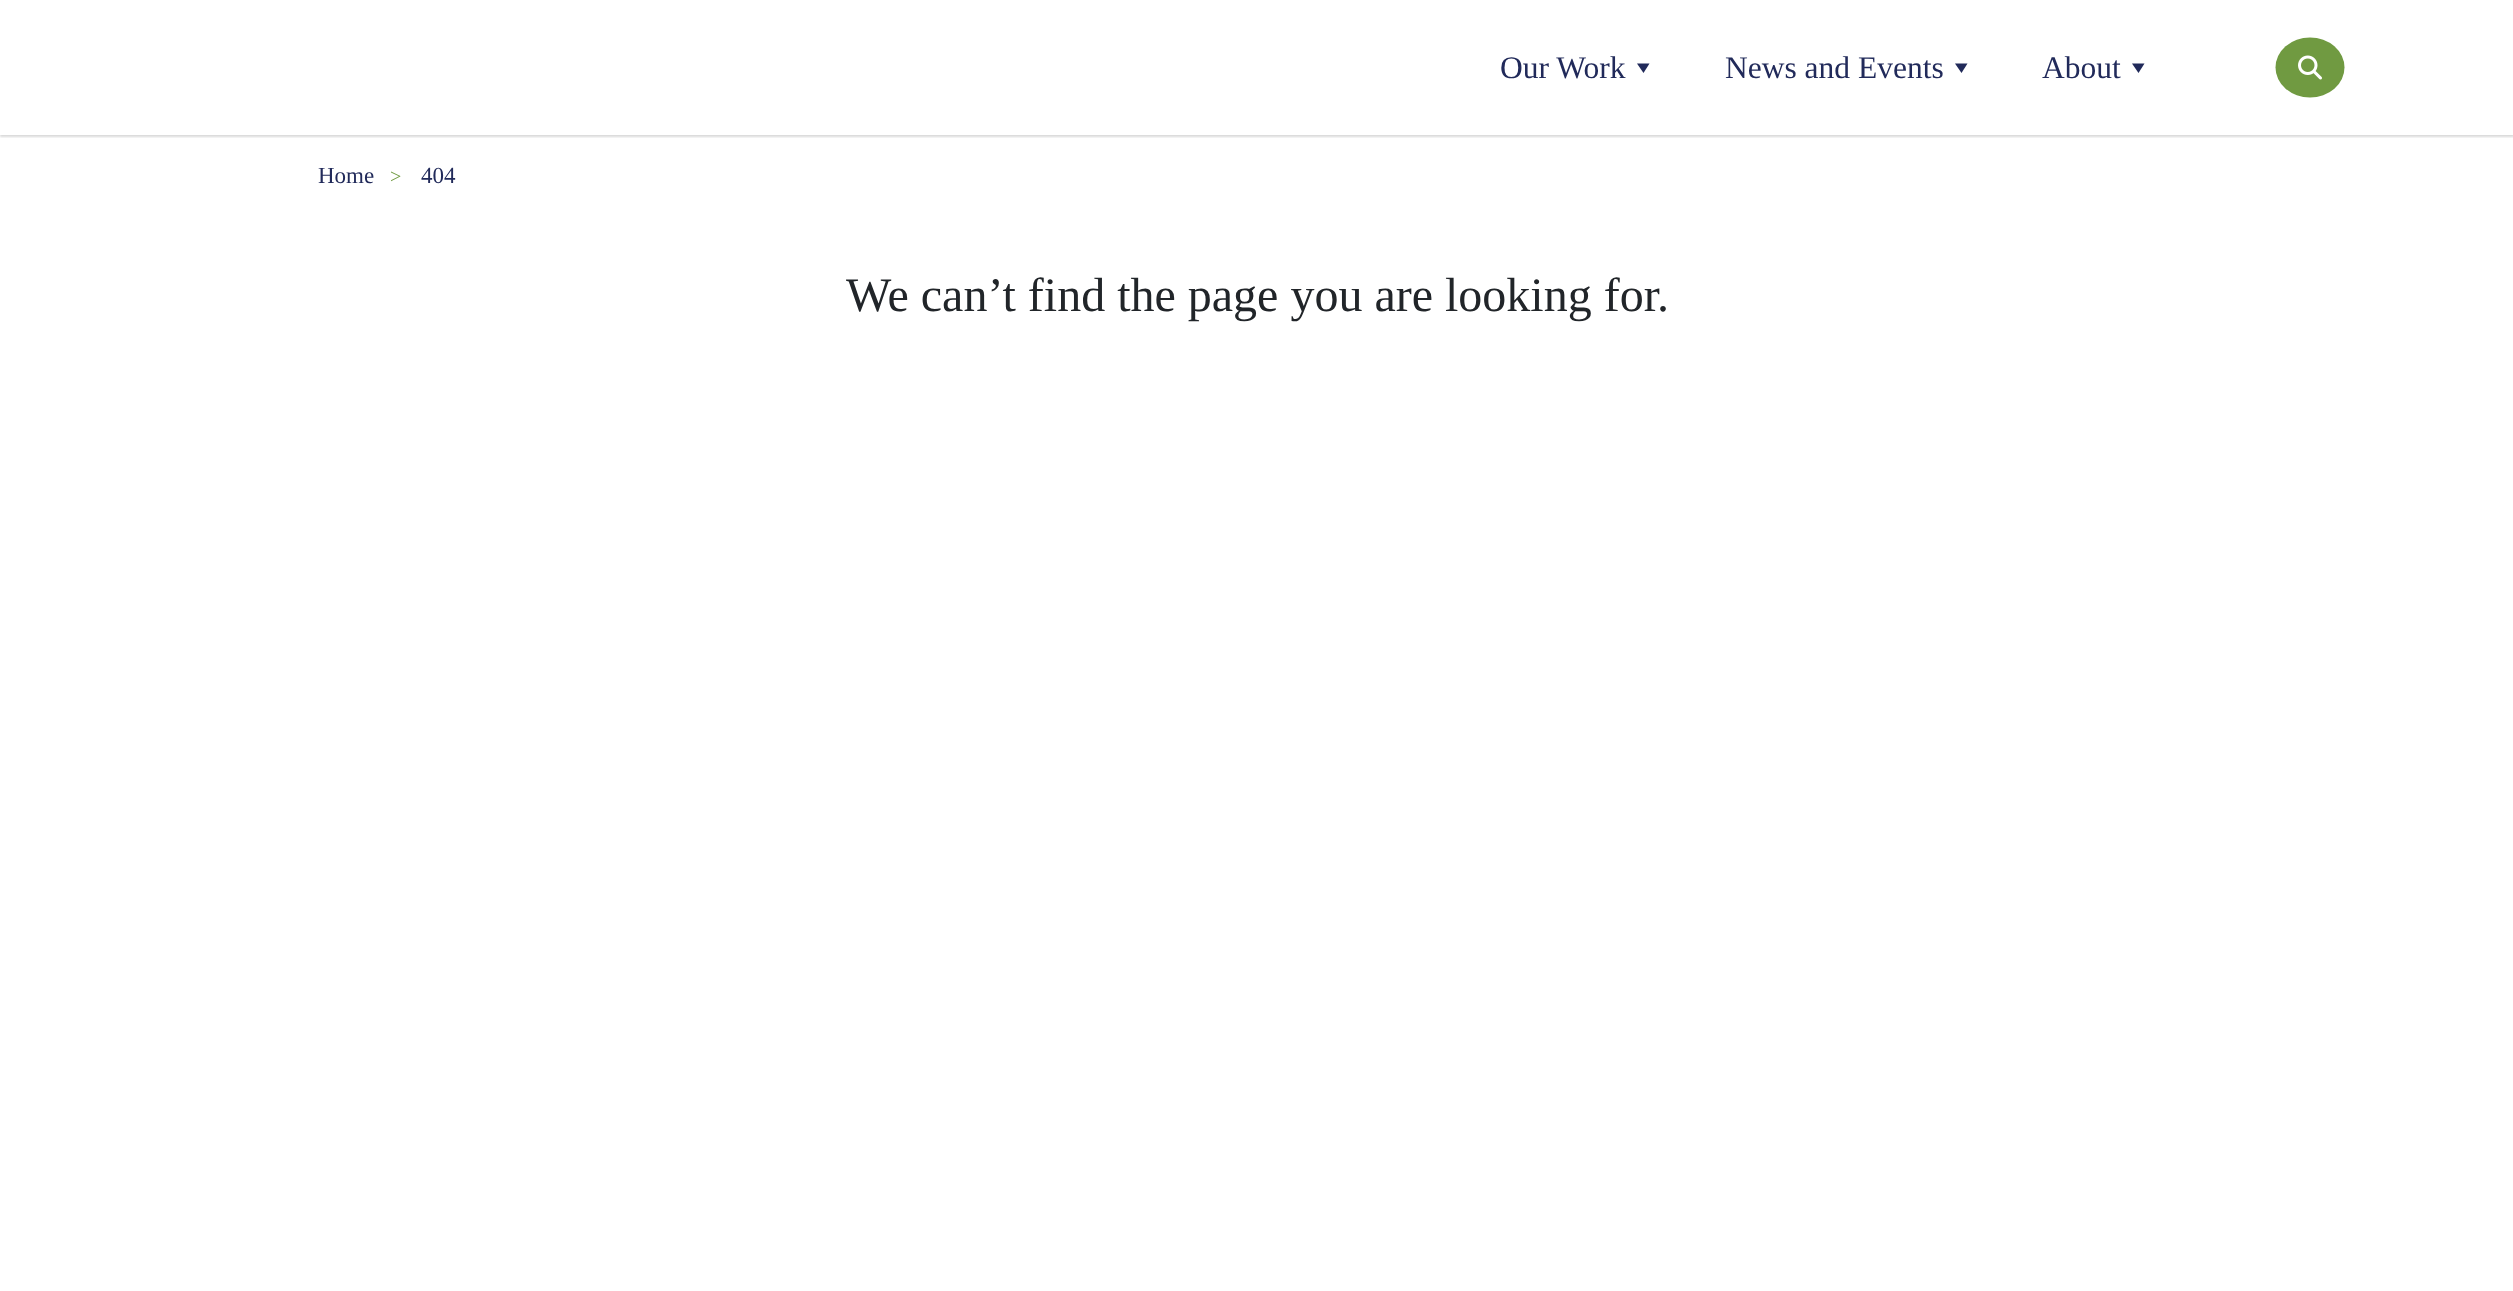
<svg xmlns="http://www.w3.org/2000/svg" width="2513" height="1291">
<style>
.a{font:31.5px Liberation Serif;fill:#212a5a}
.b{font:23px Liberation Serif;fill:#212a5a}
.c{font:20px Liberation Serif;fill:#709b42}
.d{font:48px Liberation Serif;fill:#212529}
</style>
<defs>
<clipPath id="clip1"><path d="M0 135h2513v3H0z"/></clipPath>
</defs>
<rect width="100%" height="100%" fill="#fff"/>
<g clip-path="url(#clip1)">
<path fill="#00000026" filter="blur(1px)" d="M0 2h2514v135H0z"/>
</g>
<path fill="#212a5a" d="M1649.5 63.5l-6 9.5l-6.5-9.5z"/>
<path fill="#212a5a" d="M1967.5 63.5l-6 9.5l-6.5-9.5z"/>
<path fill="#212a5a" d="M2144.5 63.5l-6 9.5l-6.5-9.5z"/>
<ellipse fill="#709a41" cx="2310" cy="67.5" rx="34.5" ry="30"/>
<image href="1.png" x="2298" y="55" width="24" height="25"/>
<text class="a" x="1500" y="78">Our Work</text>
<text class="a" x="1725" y="78">News and Events</text>
<text class="a" x="2042" y="78">About</text>
<text class="b" x="318" y="183">Home</text>
<text class="c" x="390" y="183">&gt;</text>
<text class="b" x="421" y="183">404</text>
<text class="d" x="846" y="311">We can’t find the page you are looking for.</text>
</svg>
